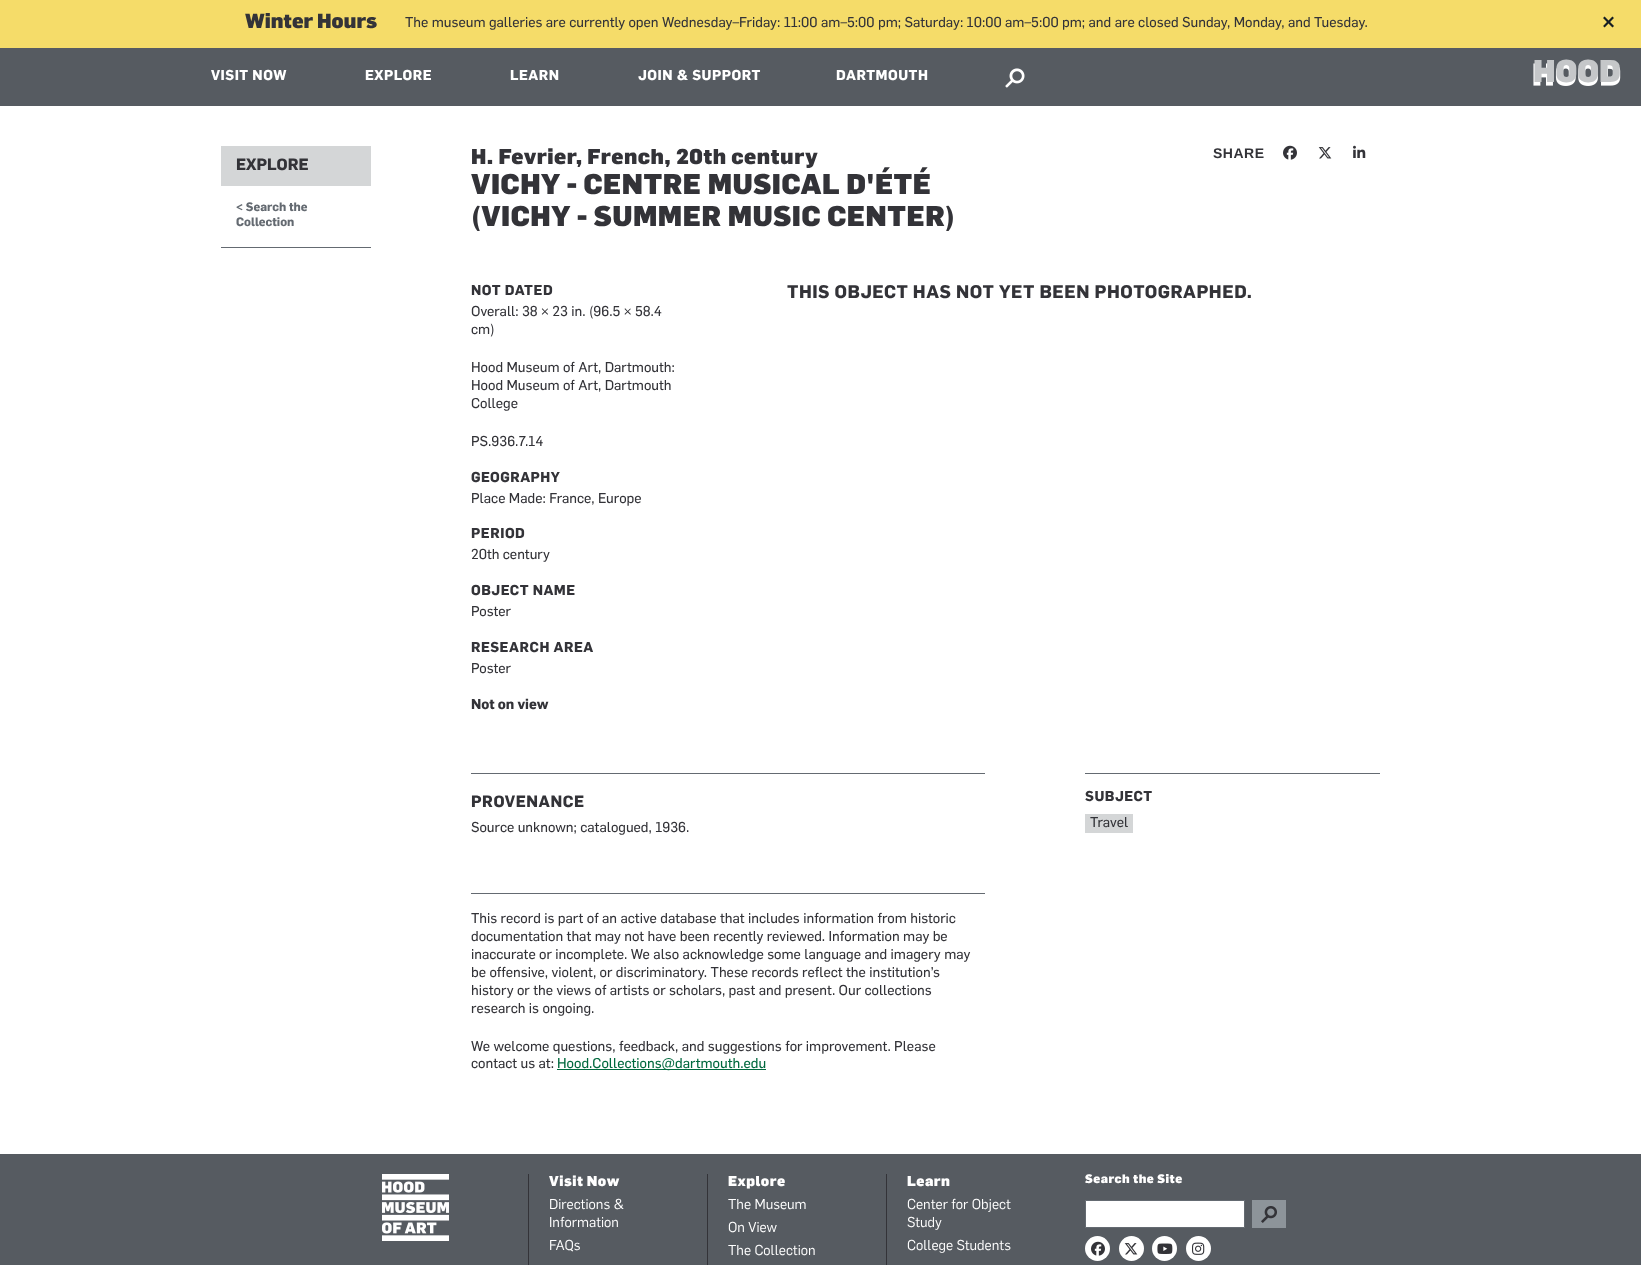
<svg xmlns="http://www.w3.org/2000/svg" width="1641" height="1265">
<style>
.a{font:900 20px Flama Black;fill:#333338}
.b{font:14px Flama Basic;fill:#333338}
.c{font:bold 22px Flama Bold;fill:#161e23}
.d{font:bold 14px Flama Bold;letter-spacing:0.5px;fill:#fff}
.e{font:900 31px Flama Black;fill:#c5c7c9}
.f{font:bold 16px Flama Bold;fill:#333338}
.g{font:bold 12px Flama Bold;fill:#646a71}
.h{font:900 21px Flama Black;letter-spacing:0.5px;fill:#333338}
.i{font:900 28px Flama Black;letter-spacing:0.5px;fill:#333338}
.j{font:bold 14px Liberation Sans;letter-spacing:0.5px;fill:#333338}
.k{font:bold 14px Flama Bold;letter-spacing:0.5px;fill:#333338}
.l{font:bold 14px Flama Bold;fill:#333338}
.m{font:bold 18px Flama Bold;letter-spacing:0.5px;fill:#333338}
.n{font:bold 16px Flama Bold;letter-spacing:0.5px;fill:#333338}
.o{font:14px Flama Basic;fill:#00693e}
.p{font:900 14px Flama Black;letter-spacing:0.5px;fill:#fff}
.q{font:14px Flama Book;fill:#fff}
.r{font:900 12px Flama Black;letter-spacing:0.5px;fill:#fff}
</style>
<rect width="100%" height="100%" fill="#fff"/>
<path fill="#f5dc69" d="M0 0h1641v48H0z"/>
<path fill="#565b61" d="M0 48h1641v58H0z"/>
<image href="1.png" x="1533" y="63" width="88" height="23"/>
<image href="2.png" x="1005" y="68" width="20" height="20"/>
<path fill="#d4d6d7" d="M221 146h150v40H221z"/>
<path fill="#646a71" d="M221 247h150v1H221z"/>
<image href="3.png" x="1283" y="145" width="14" height="15"/>
<image href="4.png" x="1318" y="147" width="14" height="12"/>
<image href="5.png" x="1353" y="145" width="13" height="13"/>
<path fill="#646a71" d="M471 773h514v1H471z"/>
<path fill="#646a71" d="M471 893h514v1H471z"/>
<path fill="#00693e" d="M557 1069h209v1H557z"/>
<path fill="#646a71" d="M1085 773h295v1H1085z"/>
<path fill="#d4d6d7" d="M1085 814h48v19H1085z"/>
<path fill="#565b61" d="M0 1154h1641v111H0z"/>
<image href="6.png" x="382" y="1174" width="67" height="67"/>
<path fill="#333338" d="M528 1174h1v91H528z"/>
<path fill="#333338" d="M707 1174h1v91H707z"/>
<path fill="#333338" d="M886 1174h1v91H886z"/>
<path fill="#fff" stroke="#646a71" d="M1085.5 1200.5h159v27H1085.5z"/>
<path fill="#8d949a" d="M1252 1200h34v28H1252z"/>
<image href="7.png" x="1261" y="1206" width="16" height="17"/>
<circle fill="#fff" cx="1097.5" cy="1248.5" r="12.5"/>
<image href="3.png" x="1091" y="1241" width="14" height="15"/>
<circle fill="#fff" cx="1131.5" cy="1248.5" r="12.5"/>
<image href="4.png" x="1124" y="1243" width="14" height="12"/>
<circle fill="#fff" cx="1164.5" cy="1248.5" r="12.5"/>
<image href="8.png" x="1157" y="1243" width="16" height="11"/>
<circle fill="#fff" cx="1198.5" cy="1248.5" r="12.5"/>
<image href="9.png" x="1192" y="1242" width="13" height="13"/>
<text class="a" x="245" y="28">Winter Hours</text>
<text class="b" x="405" y="27">The museum galleries are currently open Wednesday–Friday: 11:00 am–5:00 pm; Saturday: 10:00 am–5:00 pm; and are closed Sunday, Monday, and Tuesday.</text>
<text class="c" x="1602" y="29">×</text>
<text class="d" x="211" y="80">VISIT NOW</text>
<text class="d" x="365" y="80">EXPLORE</text>
<text class="d" x="510" y="80">LEARN</text>
<text class="d" x="638" y="80">JOIN &amp; SUPPORT</text>
<text class="e" x="1533" y="82">HOOD</text>
<text class="d" x="836" y="80">DARTMOUTH</text>
<text class="f" x="236" y="170">EXPLORE</text>
<text class="g" x="236" y="211">&lt; Search the</text>
<text class="g" x="236" y="226">Collection</text>
<text class="h" x="471" y="164">H. Fevrier, French, 20th century</text>
<text class="i" x="471" y="194">VICHY - CENTRE MUSICAL D'ÉTÉ</text>
<text class="i" x="471" y="226">(VICHY - SUMMER MUSIC CENTER)</text>
<text class="j" x="1213" y="158">SHARE</text>
<text class="k" x="471" y="295">NOT DATED</text>
<text class="b" x="471" y="316">Overall: 38 × 23 in. (96.5 × 58.4</text>
<text class="b" x="471" y="334">cm)</text>
<text class="b" x="471" y="372">Hood Museum of Art, Dartmouth:</text>
<text class="b" x="471" y="390">Hood Museum of Art, Dartmouth</text>
<text class="b" x="471" y="408">College</text>
<text class="b" x="471" y="446">PS.936.7.14</text>
<text class="k" x="471" y="482">GEOGRAPHY</text>
<text class="b" x="471" y="503">Place Made: France, Europe</text>
<text class="k" x="471" y="538">PERIOD</text>
<text class="b" x="471" y="559">20th century</text>
<text class="k" x="471" y="595">OBJECT NAME</text>
<text class="b" x="471" y="616">Poster</text>
<text class="k" x="471" y="652">RESEARCH AREA</text>
<text class="b" x="471" y="673">Poster</text>
<text class="l" x="471" y="709">Not on view</text>
<text class="m" x="787" y="298">THIS OBJECT HAS NOT YET BEEN PHOTOGRAPHED.</text>
<text class="n" x="471" y="807">PROVENANCE</text>
<text class="b" x="471" y="832">Source unknown; catalogued, 1936.</text>
<text class="b" x="471" y="923">This record is part of an active database that includes information from historic</text>
<text class="b" x="471" y="941">documentation that may not have been recently reviewed. Information may be</text>
<text class="b" x="471" y="959">inaccurate or incomplete. We also acknowledge some language and imagery may</text>
<text class="b" x="471" y="977">be offensive, violent, or discriminatory. These records reflect the institution’s</text>
<text class="b" x="471" y="995">history or the views of artists or scholars, past and present. Our collections</text>
<text class="b" x="471" y="1013">research is ongoing.</text>
<text class="b" x="471" y="1051">We welcome questions, feedback, and suggestions for improvement. Please</text>
<text class="b" x="471" y="1068">contact us at:</text>
<text class="o" x="557" y="1068">Hood.Collections@dartmouth.edu</text>
<text class="k" x="1085" y="801">SUBJECT</text>
<text class="b" x="1090" y="827">Travel</text>
<text class="p" x="549" y="1186">Visit Now</text>
<text class="q" x="549" y="1209">Directions &amp;</text>
<text class="q" x="549" y="1227">Information</text>
<text class="q" x="549" y="1250">FAQs</text>
<text class="p" x="728" y="1186">Explore</text>
<text class="q" x="728" y="1209">The Museum</text>
<text class="q" x="728" y="1232">On View</text>
<text class="q" x="728" y="1255">The Collection</text>
<text class="p" x="907" y="1186">Learn</text>
<text class="q" x="907" y="1209">Center for Object</text>
<text class="q" x="907" y="1227">Study</text>
<text class="q" x="907" y="1250">College Students</text>
<text class="r" x="1085" y="1183">Search the Site</text>
</svg>
